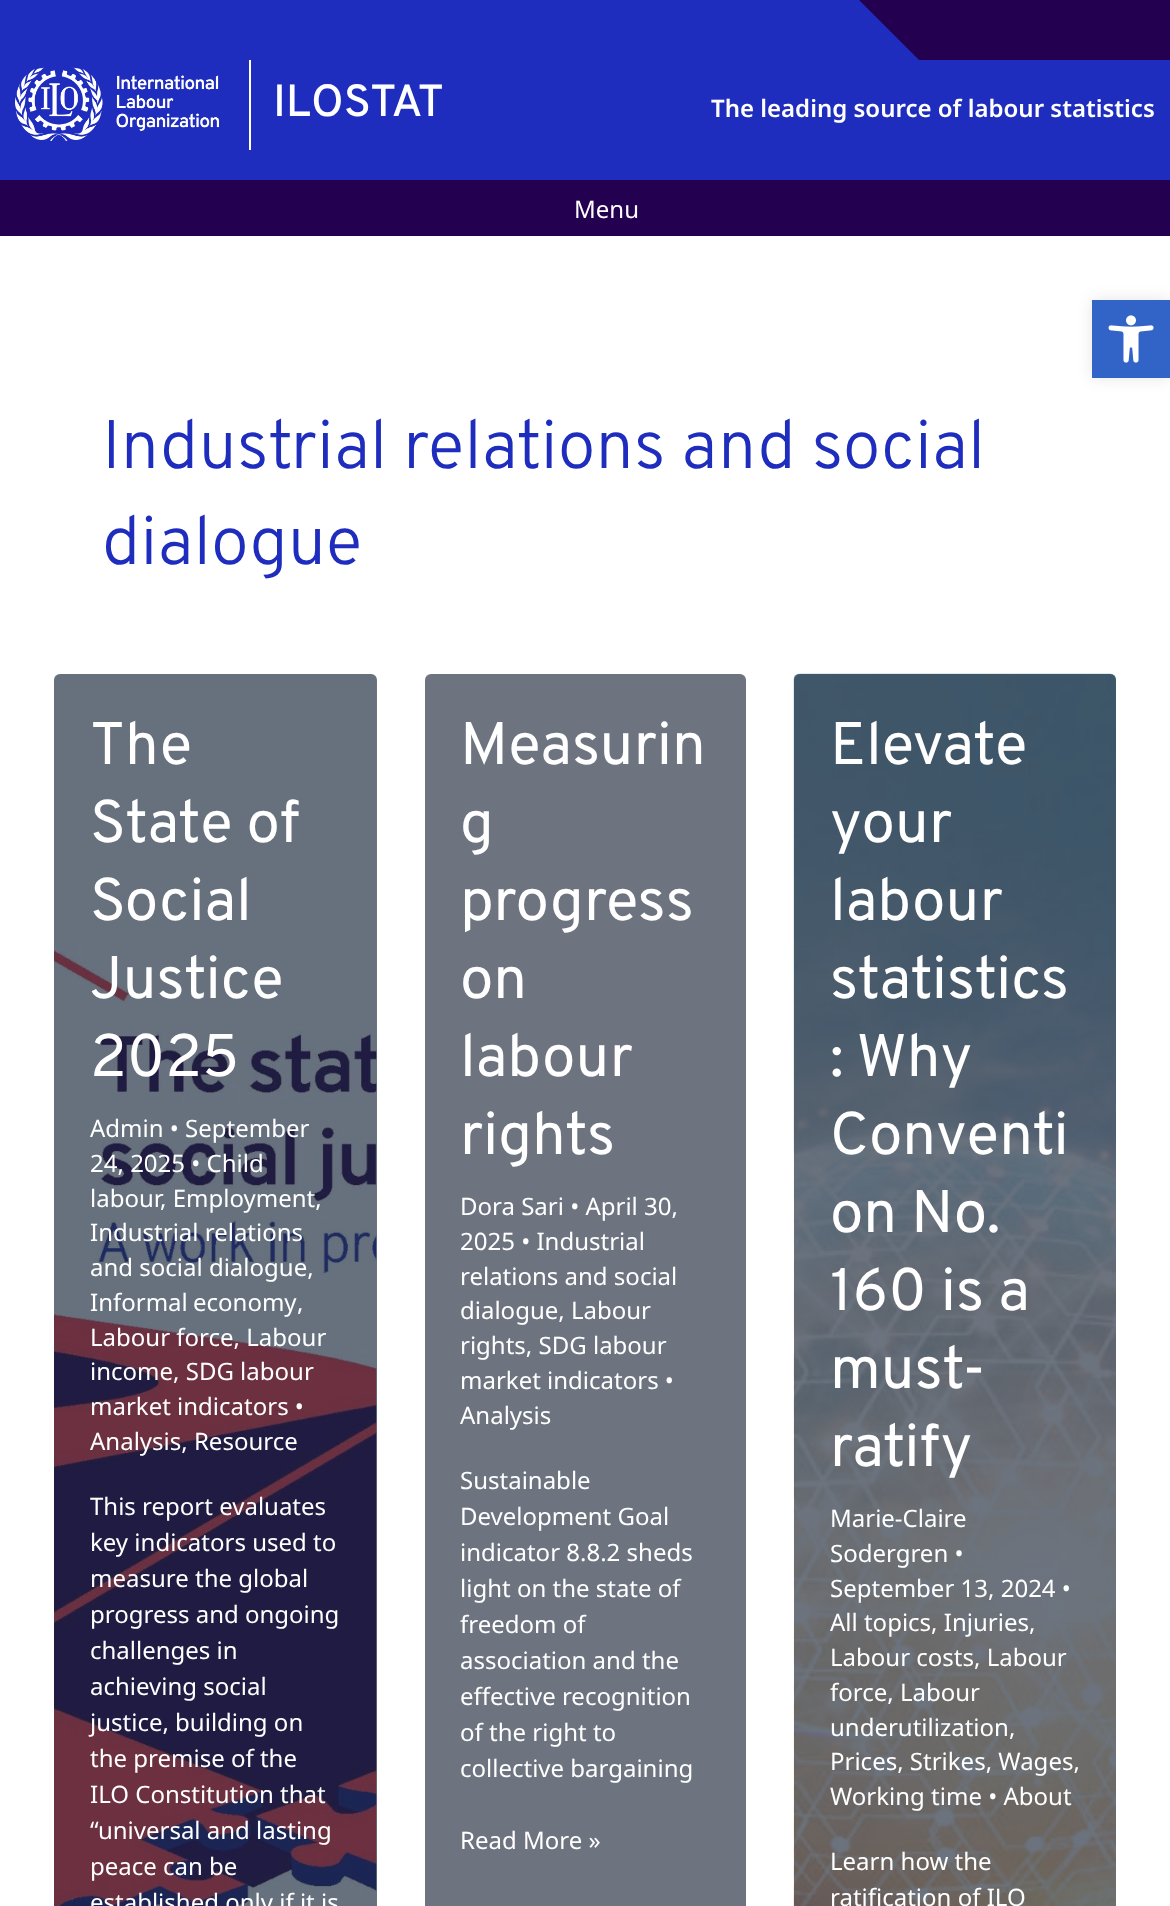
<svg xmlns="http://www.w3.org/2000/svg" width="1170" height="1906">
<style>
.a{font:500 45px Overpass;fill:#fff}
.b{font:600 24px Noto Sans;fill:#fff}
.c{font:24px Noto Sans;fill:#fff}
.d{font:300 68.5px Overpass;fill:#1e2dbe}
.e{font:60px Overpass;fill:#fff}
</style>
<rect width="100%" height="100%" fill="#fff"/>
<path fill="#1e2dbe" d="M0 0h889v30H0z"/>
<path fill="#1e2dbe" d="M0 30h1170v150H0z"/>
<path fill="#230050" d="M859 0h311v60h-251z"/>
<image href="1.png" x="15" y="67" width="204" height="74"/>
<path fill="#fff" d="M249 60h2v90H249z"/>
<path fill="#230050" d="M0 180h1170v56H0z"/>
<image href="2.png" x="54" y="674" width="323" height="1232"/>
<rect fill="#1e293ba6" x="54" y="674" width="323" height="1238" rx="6"/>
<rect fill="#6d7480" x="425" y="674" width="321" height="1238" rx="6"/>
<image href="3.png" x="793" y="673" width="323" height="1233"/>
<rect fill="#1e293ba6" x="794" y="674" width="322" height="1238" rx="6"/>
<path fill="#0000001a" filter="blur(7.5px)" d="M1092 300h78v78H1092z"/>
<path fill="#3264c8" d="M1092 300h78v78H1092z"/>
<image href="4.png" x="1108" y="315" width="46" height="48"/>
<text class="a" x="273" y="116">ILOSTAT</text>
<text class="b" x="711" y="117">The leading source of labour statistics</text>
<text class="c" x="574" y="218">Menu</text>
<text class="d" x="102" y="468">Industrial relations and social</text>
<text class="d" x="102" y="564">dialogue</text>
<text class="e" x="90" y="764">The</text>
<text class="e" x="90" y="842">State of</text>
<text class="e" x="90" y="920">Social</text>
<text class="e" x="90" y="998">Justice</text>
<text class="e" x="90" y="1076">2025</text>
<text class="c" x="90" y="1137">Admin • September</text>
<text class="c" x="90" y="1172">24, 2025 • Child</text>
<text class="c" x="90" y="1207">labour</text>
<text class="c" x="160" y="1207">, Employment,</text>
<text class="c" x="90" y="1241">Industrial relations</text>
<text class="c" x="90" y="1276">and social dialogue,</text>
<text class="c" x="90" y="1311" word-spacing="-1">Informal economy</text>
<text class="c" x="297" y="1311">,</text>
<text class="c" x="90" y="1346">Labour force, Labour</text>
<text class="c" x="90" y="1380">income, SDG labour</text>
<text class="c" x="90" y="1415">market indicators •</text>
<text class="c" x="90" y="1450">Analysis, Resource</text>
<text class="c" x="90" y="1515">This report evaluates</text>
<text class="c" x="90" y="1551">key indicators used to</text>
<text class="c" x="90" y="1587">measure the global</text>
<text class="c" x="90" y="1623">progress and ongoing</text>
<text class="c" x="90" y="1659">challenges in</text>
<text class="c" x="90" y="1695">achieving social</text>
<text class="c" x="90" y="1731">justice, building on</text>
<text class="c" x="90" y="1767">the premise of the</text>
<text class="c" x="90" y="1803">ILO Constitution that</text>
<text class="c" x="90" y="1839">“universal and lasting</text>
<text class="c" x="90" y="1875">peace can be</text>
<text class="c" x="90" y="1911">established only if it is</text>
<text class="e" x="460" y="764">Measurin</text>
<text class="e" x="460" y="842">g</text>
<text class="e" x="460" y="920">progress</text>
<text class="e" x="460" y="998">on</text>
<text class="e" x="460" y="1076">labour</text>
<text class="e" x="460" y="1154">rights</text>
<text class="c" x="460" y="1215">Dora Sari • April 30,</text>
<text class="c" x="460" y="1250">2025 • Industrial</text>
<text class="c" x="460" y="1285">relations and social</text>
<text class="c" x="460" y="1319">dialogue, Labour</text>
<text class="c" x="460" y="1354">rights, SDG labour</text>
<text class="c" x="460" y="1389">market indicators •</text>
<text class="c" x="460" y="1424">Analysis</text>
<text class="c" x="460" y="1489">Sustainable</text>
<text class="c" x="460" y="1525">Development Goal</text>
<text class="c" x="460" y="1561">indicator 8.8.2 sheds</text>
<text class="c" x="460" y="1597">light on the state of</text>
<text class="c" x="460" y="1633">freedom of</text>
<text class="c" x="460" y="1669">association and the</text>
<text class="c" x="460" y="1705">effective recognition</text>
<text class="c" x="460" y="1741">of the right to</text>
<text class="c" x="460" y="1777">collective bargaining</text>
<text class="c" x="460" y="1849">Read More »</text>
<text class="e" x="830" y="764">Elevate</text>
<text class="e" x="830" y="842">your</text>
<text class="e" x="830" y="920">labour</text>
<text class="e" x="830" y="998">statistics</text>
<text class="e" x="830" y="1076">: Why</text>
<text class="e" x="830" y="1154">Conventi</text>
<text class="e" x="830" y="1232">on No.</text>
<text class="e" x="830" y="1310">160 is a</text>
<text class="e" x="830" y="1388">must-</text>
<text class="e" x="830" y="1466">ratify</text>
<text class="c" x="830" y="1527">Marie-Claire</text>
<text class="c" x="830" y="1562">Sodergren •</text>
<text class="c" x="830" y="1597">September 13, 2024 •</text>
<text class="c" x="830" y="1631">All topics, Injuries,</text>
<text class="c" x="830" y="1666">Labour costs, Labour</text>
<text class="c" x="830" y="1701">force, Labour</text>
<text class="c" x="830" y="1736">underutilization,</text>
<text class="c" x="830" y="1770">Prices, Strikes, Wages,</text>
<text class="c" x="830" y="1805">Working time • About</text>
<text class="c" x="830" y="1870">Learn how the</text>
<text class="c" x="830" y="1906">ratification of ILO</text>
</svg>
